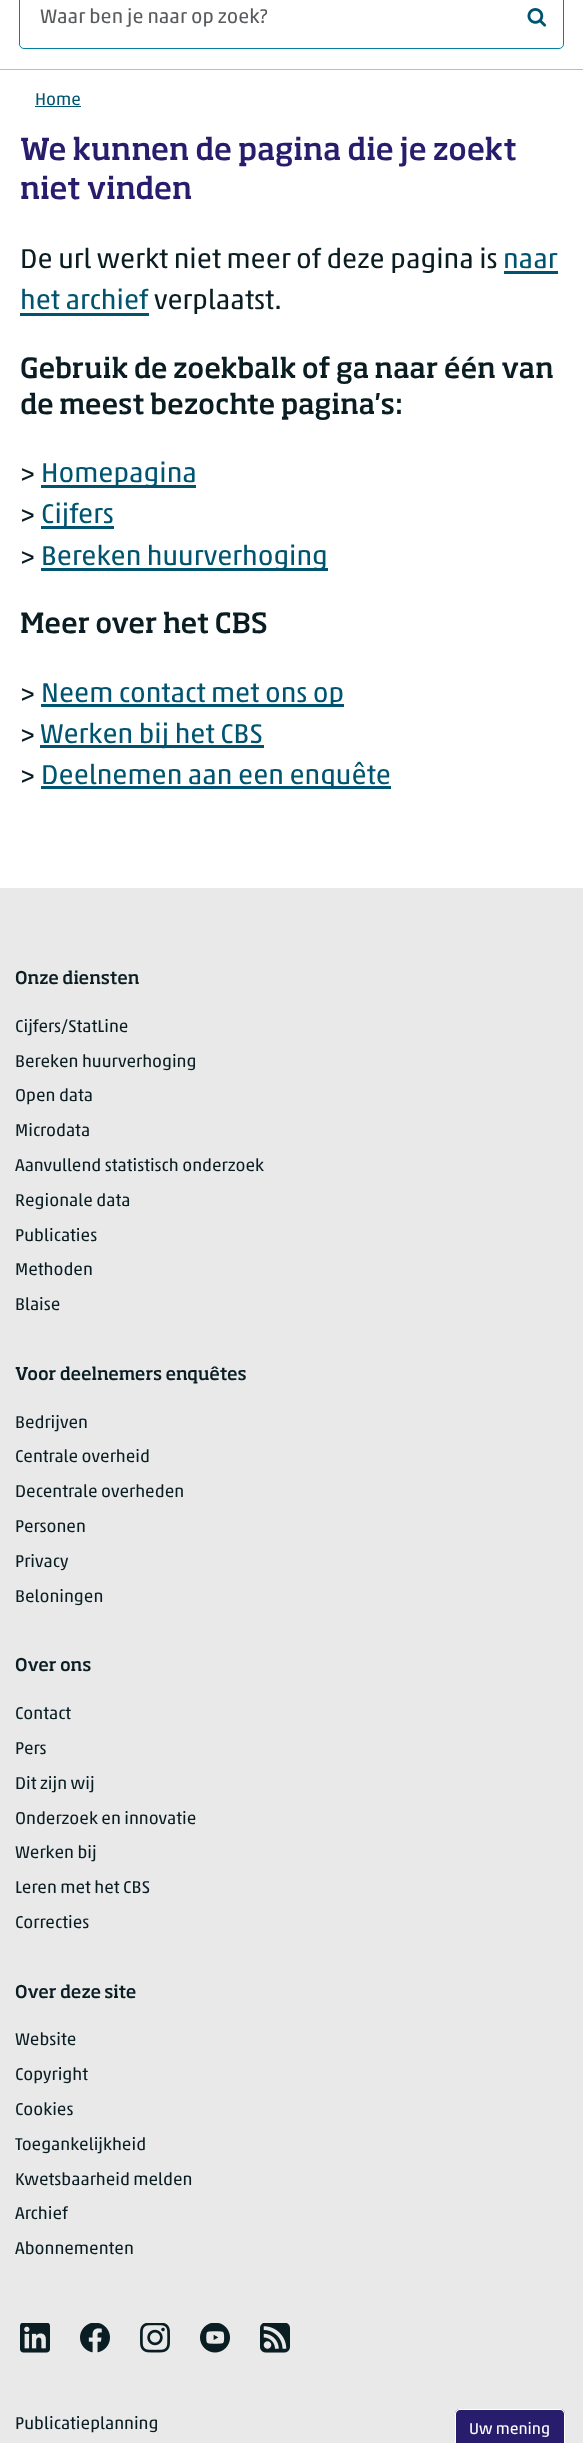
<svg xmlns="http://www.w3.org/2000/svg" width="583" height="2443">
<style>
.a{font:20px 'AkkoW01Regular';fill:#595c5f}
.b{font:17.4px 'AkkoW01Regular';fill:#005470}
.c{font:500 30px 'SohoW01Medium';fill:#271d6c}
.d{font:27.5px 'AkkoW01Regular';fill:#091d23}
.e{font:27.5px 'AkkoW01Regular';fill:#005470}
.f{font:500 27.5px 'SohoW01Medium';fill:#091d23}
.g{font:500 17.4px 'SohoW01Medium';fill:#091d23}
.h{font:17.4px 'AkkoW01Regular';fill:#091d23}
.i{font:16px 'AkkoW01Regular';fill:#fff}
</style>
<rect width="100%" height="100%" fill="#fff"/>
<rect fill="none" stroke="#0580a1" x="19.5" y="-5.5" width="544" height="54" rx="4.5"/>
<image href="1.png" x="527" y="8" width="20" height="19"/>
<path fill="#bdbcbc" d="M0 69h583v1H0z"/>
<path fill="#005470" d="M35 106h46v1H35z"/>
<path fill="#005470" d="M504 271h54v3H504z"/>
<path fill="#005470" d="M20 313h129v3H20z"/>
<path fill="#005470" d="M41 485h155v3H41z"/>
<path fill="#005470" d="M41 526h73v3H41z"/>
<path fill="#005470" d="M41 568h287v3H41z"/>
<path fill="#005470" d="M41 704h303v3H41z"/>
<path fill="#005470" d="M40 745h224v3H40z"/>
<path fill="#005470" d="M41 786h350v3H41z"/>
<path fill="#e9e9e9" d="M0 888h583v1555H0z"/>
<image href="2.png" x="20" y="2323" width="30" height="30"/>
<image href="3.png" x="80" y="2323" width="30" height="30"/>
<image href="4.png" x="140" y="2323" width="30" height="30"/>
<image href="5.png" x="200" y="2323" width="30" height="30"/>
<image href="6.png" x="260" y="2323" width="30" height="30"/>
<path fill="#271d6c" d="M460 2409h100c3 0 5 2 5 5v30h-110v-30c0-3 2-5 5-5z"/>
<path fill="#fff" fill-rule="evenodd" d="M460 2409h100c3 0 5 2 5 5v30h-110v-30c0-3 2-5 5-5zm0 1h100c2 0 4 2 4 4v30h-108v-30c0-2 2-4 4-4z"/>
<text class="a" x="40" y="23">Waar ben je naar op zoek?</text>
<text class="b" x="35" y="105">Home</text>
<text class="c" x="20" y="160">We kunnen de pagina die je zoekt</text>
<text class="c" x="20" y="199">niet vinden</text>
<text class="d" x="20" y="268">De url werkt niet meer of deze pagina is</text>
<text class="e" x="503" y="268">naar</text>
<text class="e" x="20" y="309">het archief</text>
<text class="d" x="154" y="309">verplaatst.</text>
<text class="f" x="20" y="378">Gebruik de zoekbalk of ga naar één van</text>
<text class="f" x="20" y="414">de meest bezochte pagina's:</text>
<text class="d" x="20" y="482">&gt;</text>
<text class="e" x="41" y="482">Homepagina</text>
<text class="d" x="20" y="523">&gt;</text>
<text class="e" x="41" y="523">Cijfers</text>
<text class="d" x="20" y="565">&gt;</text>
<text class="e" x="41" y="565">Bereken huurverhoging</text>
<text class="f" x="20" y="633">Meer over het CBS</text>
<text class="d" x="20" y="702">&gt;</text>
<text class="e" x="41" y="702">Neem contact met ons op</text>
<text class="d" x="20" y="743">&gt;</text>
<text class="e" x="40" y="743">Werken bij het CBS</text>
<text class="d" x="20" y="784">&gt;</text>
<text class="e" x="41" y="784">Deelnemen aan een enquête</text>
<text class="g" x="15" y="984">Onze diensten</text>
<text class="h" x="15" y="1032">Cijfers/StatLine</text>
<text class="h" x="15" y="1067">Bereken huurverhoging</text>
<text class="h" x="15" y="1101">Open data</text>
<text class="h" x="15" y="1136">Microdata</text>
<text class="h" x="15" y="1171">Aanvullend statistisch onderzoek</text>
<text class="h" x="15" y="1206">Regionale data</text>
<text class="h" x="15" y="1241">Publicaties</text>
<text class="h" x="15" y="1275">Methoden</text>
<text class="h" x="15" y="1310">Blaise</text>
<text class="g" x="15" y="1380">Voor deelnemers enquêtes</text>
<text class="h" x="15" y="1428">Bedrijven</text>
<text class="h" x="15" y="1462">Centrale overheid</text>
<text class="h" x="15" y="1497">Decentrale overheden</text>
<text class="h" x="15" y="1532">Personen</text>
<text class="h" x="15" y="1567">Privacy</text>
<text class="h" x="15" y="1602">Beloningen</text>
<text class="g" x="15" y="1671">Over ons</text>
<text class="h" x="15" y="1719">Contact</text>
<text class="h" x="15" y="1754">Pers</text>
<text class="h" x="15" y="1789">Dit zijn wij</text>
<text class="h" x="15" y="1824">Onderzoek en innovatie</text>
<text class="h" x="15" y="1858">Werken bij</text>
<text class="h" x="15" y="1893">Leren met het CBS</text>
<text class="h" x="15" y="1928">Correcties</text>
<text class="g" x="15" y="1998">Over deze site</text>
<text class="h" x="15" y="2045">Website</text>
<text class="h" x="15" y="2080">Copyright</text>
<text class="h" x="15" y="2115">Cookies</text>
<text class="h" x="15" y="2150">Toegankelijkheid</text>
<text class="h" x="15" y="2185">Kwetsbaarheid melden</text>
<text class="h" x="15" y="2219">Archief</text>
<text class="h" x="15" y="2254">Abonnementen</text>
<text class="h" x="15" y="2429">Publicatieplanning</text>
<text class="i" x="469" y="2434">Uw mening</text>
</svg>
